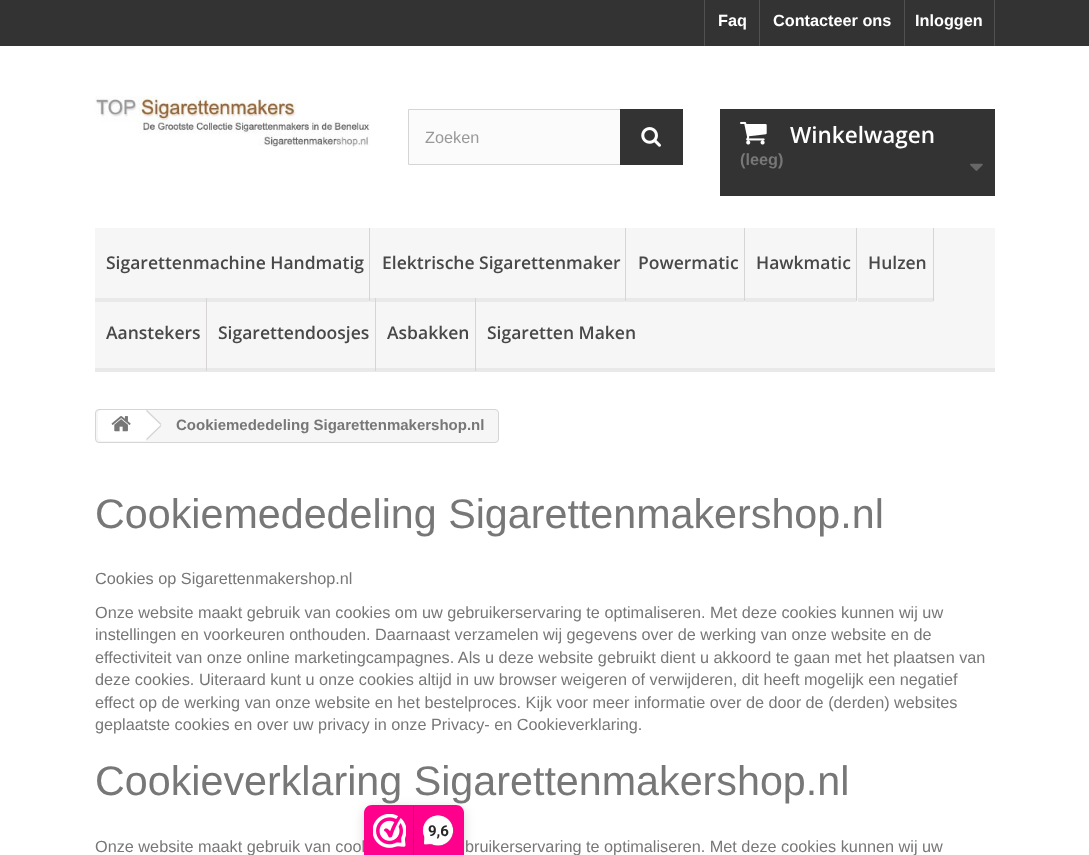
<svg xmlns="http://www.w3.org/2000/svg" width="1089" height="855">
<style>
.a{font:bold 16.25px Liberation Sans;fill:#fff}
.b{font:16.25px Liberation Sans;fill:#999}
.c{font:600 22.5px Open Sans;fill:#fff}
.d{font:bold 16.25px Liberation Sans;fill:#777}
.e{font:600 17.5px Open Sans;fill:#484848}
.f{font:bold 15px Liberation Sans;fill:#777}
.g{font:41.25px Liberation Sans;fill:#777}
.h{font:16.25px Liberation Sans;fill:#777}
.i{font:bold 15px Roboto;fill:#272626}
</style>
<rect width="100%" height="100%" fill="#fff"/>
<path fill="#333" d="M0 0h1089v46H0z"/>
<path fill="#515151" d="M704 0h1v46H704z"/>
<path fill="#515151" d="M759 0h1v46H759z"/>
<path fill="#515151" d="M994 0h1v46H994z"/>
<path fill="#515151" d="M904 0h1v46H904z"/>
<image href="1.png" x="95" y="96" width="275" height="52"/>
<path fill="#fbfbfb" d="M409 110h211v54H409z"/>
<path fill="none" stroke="#d6d4d4" d="M408.5 109.5h274v55H408.5z"/>
<path fill="#333" d="M620 109h63v56H620z"/>
<image href="2.png" x="641" y="127" width="20" height="20"/>
<path fill="#333" d="M720 109h275v87H720z"/>
<image href="3.png" x="740" y="121" width="27" height="24"/>
<image href="4.png" x="970" y="163" width="13" height="8"/>
<path fill="#f6f6f6" d="M95 228h900v140H95z"/>
<path fill="#e9e9e9" d="M95 368h900v4H95z"/>
<path fill="#d6d4d4" d="M369 228h1v73H369z"/>
<path fill="#e9e9e9" d="M95 298h274v4H95z"/>
<path fill="#d6d4d4" d="M625 228h1v73H625z"/>
<path fill="#e9e9e9" d="M370 298h255v4H370z"/>
<path fill="#d6d4d4" d="M744 228h1v73H744z"/>
<path fill="#e9e9e9" d="M626 298h118v4H626z"/>
<path fill="#d6d4d4" d="M856 228h1v73H856z"/>
<path fill="#e9e9e9" d="M745 298h111v4H745z"/>
<path fill="#d6d4d4" d="M933 228h1v73H933z"/>
<path fill="#e9e9e9" d="M858 298h75v4H858z"/>
<path fill="#d6d4d4" d="M206 298h1v73H206z"/>
<path fill="#d6d4d4" d="M375 298h1v73H375z"/>
<path fill="#d6d4d4" d="M475 298h1v73H475z"/>
<rect fill="#f6f6f6" stroke="#d6d4d4" x="95.5" y="409.5" width="403" height="33" rx="3.5"/>
<path fill="#fff" d="M102 410h43v31h-43c-2 0-4-2-4-4v-23c0-2 2-4 4-4z"/>
<image href="5.png" x="111" y="416" width="20" height="16"/>
<path fill="#fff" d="M148 411l12.5 12c1 1 1 3 0 4l-12.5 12c-1 1-2.5 1-3.5 0l-12.5-12c-1-1-1-3 0-4l12.5-12c1-1 2.5-1 3.5 0z"/>
<path fill="#d6d4d4" d="M147 410l14.5 14l-1 1l-14.5-14zm13.5 15l1 1l-14.5 14l-1-1z"/>
<rect fill="#00000026" filter="blur(6px)" x="364" y="808" width="100" height="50" rx="8"/>
<text class="a" x="718" y="26">Faq</text>
<text class="a" x="773" y="26">Contacteer ons</text>
<text class="a" x="915" y="26">Inloggen</text>
<text class="b" x="425" y="143">Zoeken</text>
<text class="c" x="790" y="143">Winkelwagen</text>
<text class="d" x="740" y="165">(leeg)</text>
<text class="e" x="106" y="269">Sigarettenmachine Handmatig</text>
<text class="e" x="382" y="269">Elektrische Sigarettenmaker</text>
<text class="e" x="638" y="269">Powermatic</text>
<text class="e" x="756" y="269">Hawkmatic</text>
<text class="e" x="868" y="269">Hulzen</text>
<text class="e" x="106" y="339">Aanstekers</text>
<text class="e" x="218" y="339">Sigarettendoosjes</text>
<text class="e" x="387" y="339">Asbakken</text>
<text class="e" x="487" y="339">Sigaretten Maken</text>
<text class="f" x="176" y="430">Cookiemededeling Sigarettenmakershop.nl</text>
<text class="g" x="95" y="528">Cookiemededeling Sigarettenmakershop.nl</text>
<text class="h" x="95" y="584">Cookies op Sigarettenmakershop.nl</text>
<text class="h" x="95" y="618">Onze website maakt gebruik van cookies om uw gebruikerservaring te optimaliseren. Met deze cookies kunnen wij uw</text>
<text class="h" x="95" y="640">instellingen en voorkeuren onthouden. Daarnaast verzamelen wij gegevens over de werking van onze website en de</text>
<text class="h" x="95" y="663">effectiviteit van onze online marketingcampagnes. Als u deze website gebruikt dient u akkoord te gaan met het plaatsen van</text>
<text class="h" x="95" y="685">deze cookies. Uiteraard kunt u onze cookies altijd in uw browser weigeren of verwijderen, dit heeft mogelijk een negatief</text>
<text class="h" x="95" y="708">effect op de werking van onze website en het bestelproces. Kijk voor meer informatie over de door de (derden) websites</text>
<text class="h" x="95" y="730">geplaatste cookies en over uw privacy in onze Privacy- en Cookieverklaring.</text>
<text class="g" x="95" y="795">Cookieverklaring Sigarettenmakershop.nl</text>
<text class="h" x="95" y="852">Onze website maakt gebruik van cook</text>
<text class="h" x="465" y="852">bruikerservaring te optimaliseren. Met deze cookies kunnen wij uw</text>
<path fill="#fe008c" d="M372 805h84c4.5 0 8 3.5 8 8v42h-100v-42c0-4.5 3.5-8 8-8z"/>
<image href="6.png" x="373" y="814" width="33" height="34"/>
<path fill="#d80077" d="M413 806h1v49H413z"/>
<image href="7.png" x="422" y="815" width="32" height="31"/>
<text class="i" x="428" y="836">9,6</text>
</svg>
